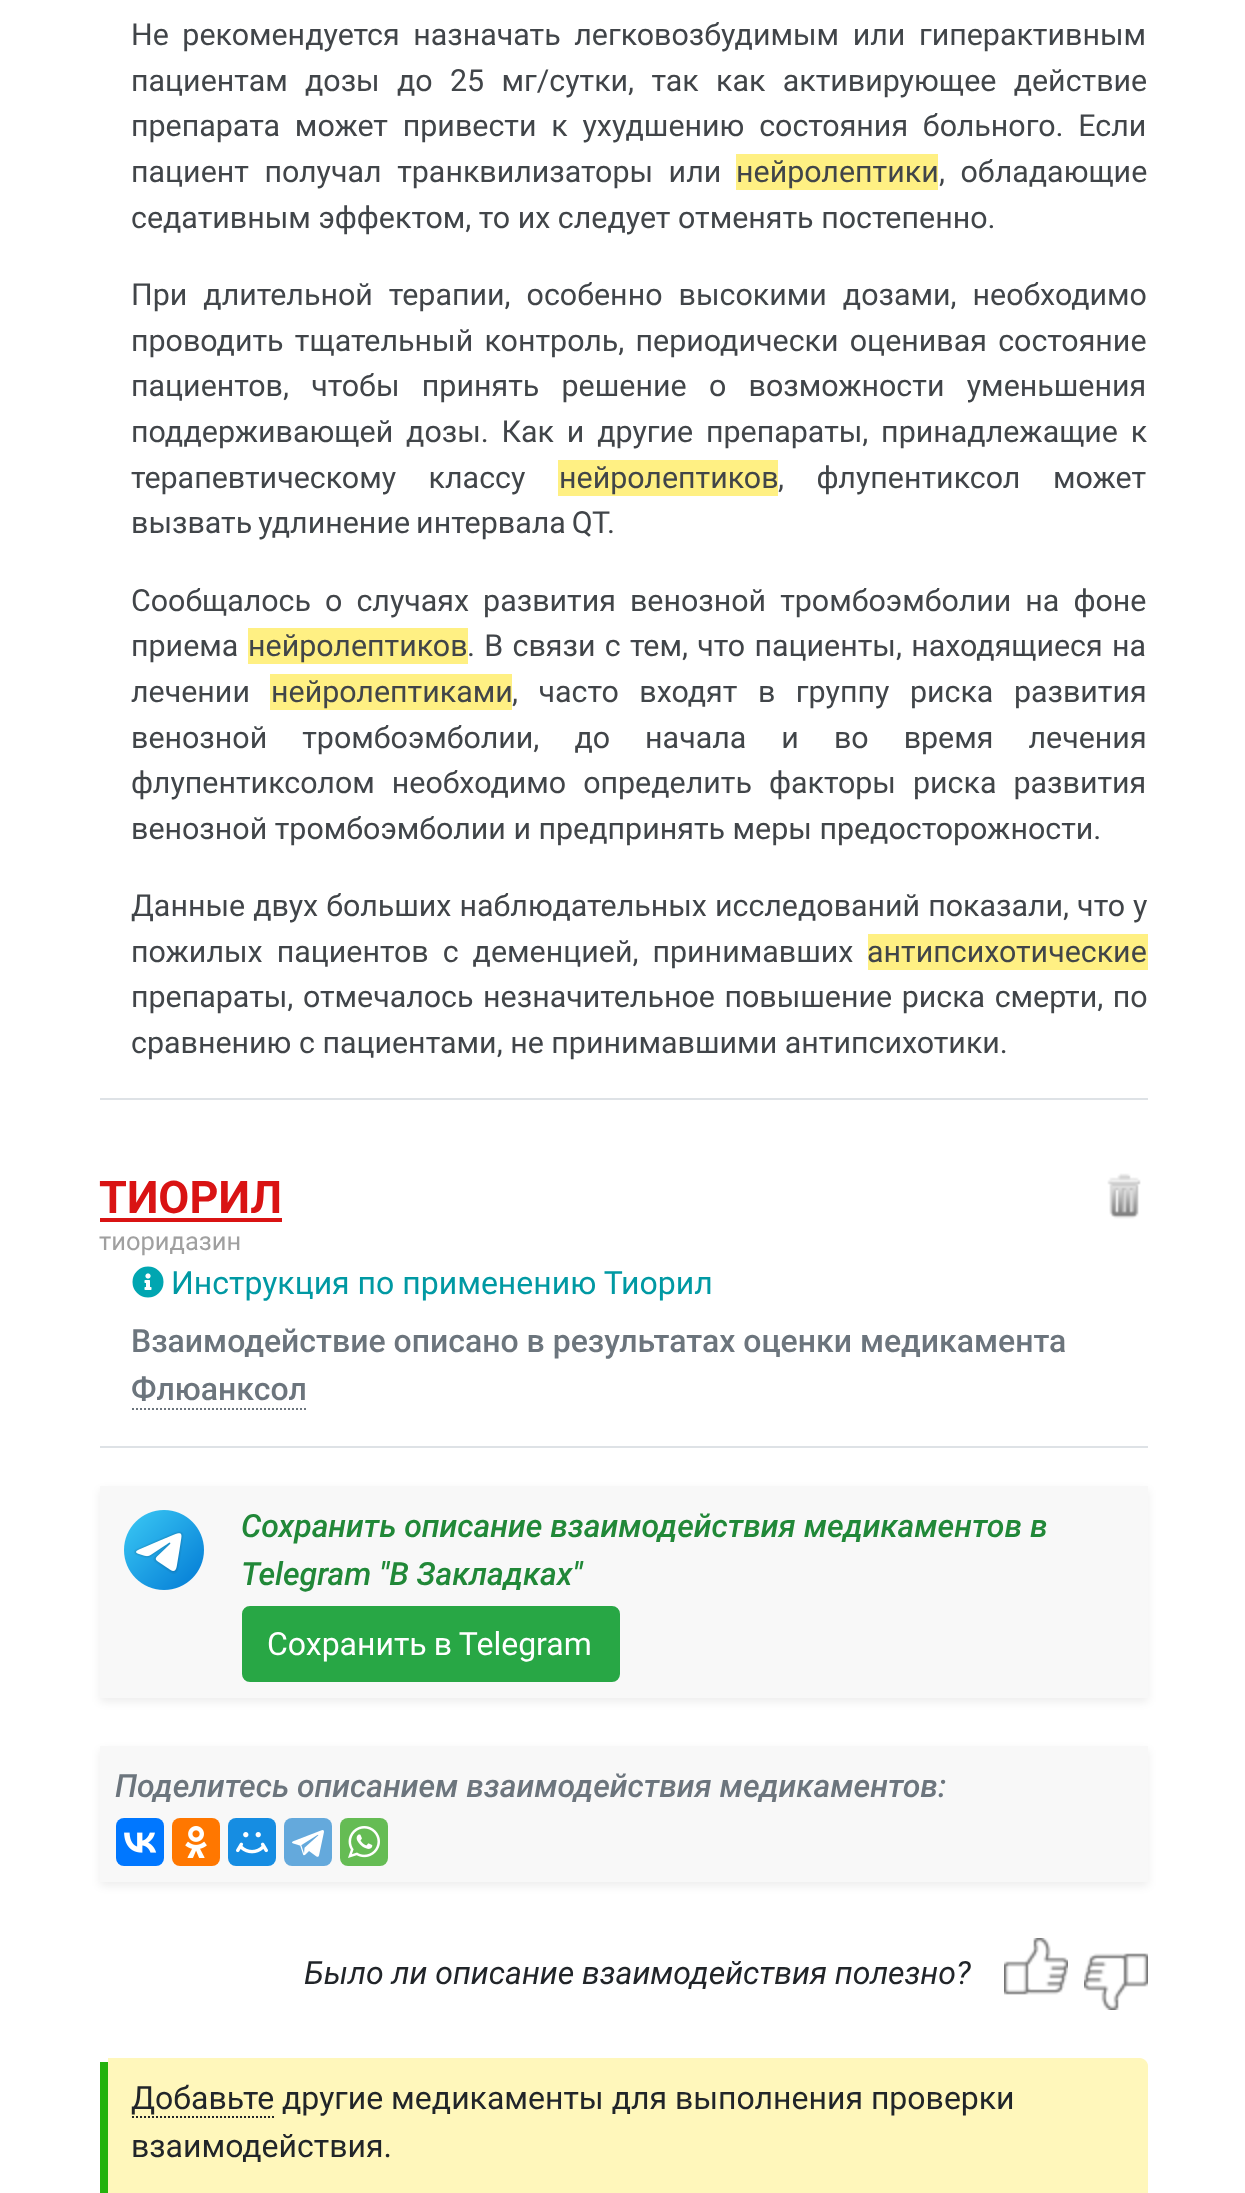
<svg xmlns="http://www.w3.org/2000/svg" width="1245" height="2193">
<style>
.a{font:30.4px Roboto;fill:#414549}
.b{font:bold 45px Roboto;fill:#d91313}
.c{font:25.5px Roboto;fill:#a0a0a0}
.d{font:32px Roboto;fill:#0099a3}
.e{font:500 32px Roboto;fill:#6c757d}
.f{font:italic 500 32px Roboto;fill:#218838}
.g{font:32px Roboto;fill:#fff}
.h{font:italic 500 32px Roboto;fill:#6c757d}
.i{font:italic 32px Roboto;fill:#212529}
.j{font:32px Roboto;fill:#212529}
</style>
<rect width="100%" height="100%" fill="#fff"/>
<path fill="#dee2e6" d="M100 1098h1048v2H100z"/>
<path fill="#fff083" d="M736 154h202v36H736z"/>
<path fill="#fff083" d="M558 460h220v36H558z"/>
<path fill="#fff083" d="M248 628h220v36H248z"/>
<path fill="#fff083" d="M270 674h242v36H270z"/>
<path fill="#fff083" d="M868 934h280v36H868z"/>
<path fill="#dee2e6" d="M100 1446h1048v2H100z"/>
<path fill="#d91313" d="M100 1218h182v4H100z"/>
<image href="1.png" x="132" y="1266" width="32" height="32"/>
<image href="2.png" x="1107" y="1173" width="34" height="46"/>
<path fill="none" stroke="#6c757d" stroke-width="2" stroke-dasharray="2 2" d="M132 1409h174"/>
<path fill="#00000012" filter="blur(4px)" d="M100 1490h1048v212H100z"/>
<path fill="#f8f8f8" d="M100 1486h1048v212H100z"/>
<image href="3.png" x="124" y="1510" width="80" height="80"/>
<rect fill="#28a745" stroke="#28a745" stroke-width="2" x="243" y="1607" width="376" height="74" rx="7"/>
<path fill="#00000012" filter="blur(4px)" d="M100 1750h1048v136H100z"/>
<path fill="#f8f8f8" d="M100 1746h1048v136H100z"/>
<rect fill="#07f" x="116" y="1818" width="48" height="48" rx="8"/>
<image href="4.png" x="124" y="1832" width="33" height="21"/>
<rect fill="#f70" x="172" y="1818" width="48" height="48" rx="8"/>
<image href="5.png" x="185" y="1826" width="22" height="32"/>
<rect fill="#168de2" x="228" y="1818" width="48" height="48" rx="8"/>
<image href="6.png" x="236" y="1832" width="32" height="22"/>
<rect fill="#64a9dc" x="284" y="1818" width="48" height="48" rx="8"/>
<image href="7.png" x="292" y="1830" width="32" height="27"/>
<rect fill="#65bc54" x="340" y="1818" width="48" height="48" rx="8"/>
<image href="8.png" x="348" y="1826" width="32" height="32"/>
<image href="9.png" x="1004" y="1938" width="64" height="57"/>
<image href="10.png" x="1084" y="1953" width="64" height="57"/>
<path fill="#fff7bb" d="M108 2058h1032c4 0 8 4 8 8v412c0 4-4 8-8 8h-1032z"/>
<path fill="#24b20e" d="M100 2062h8v131H100z"/>
<path fill="none" stroke="#212529" stroke-width="2" stroke-dasharray="2 2" d="M132 2117h142"/>
<text class="a" x="131" y="45" word-spacing="6">Не рекомендуется назначать легковозбудимым или гиперактивным</text>
<text class="a" x="131" y="91" word-spacing="9.75">пациентам дозы до 25 мг/сутки, так как активирующее действие</text>
<text class="a" x="131" y="136" word-spacing="7.25">препарата может привести к ухудшению состояния больного. Если</text>
<text class="a" x="131" y="182" word-spacing="8">пациент получал транквилизаторы или</text>
<text class="a" x="736" y="182">нейролептики</text>
<text class="a" x="939" y="182" word-spacing="8">, обладающие</text>
<text class="a" x="131" y="228">седативным эффектом, то их следует отменять постепенно.</text>
<text class="a" x="131" y="305" word-spacing="8.5">При длительной терапии, особенно высокими дозами, необходимо</text>
<text class="a" x="131" y="351" word-spacing="3.75">проводить тщательный контроль, периодически оценивая состояние</text>
<text class="a" x="131" y="396" word-spacing="14.75">пациентов, чтобы принять решение о возможности уменьшения</text>
<text class="a" x="131" y="442" word-spacing="5.25">поддерживающей дозы. Как и другие препараты, принадлежащие к</text>
<text class="a" x="131" y="488" word-spacing="25">терапевтическому классу</text>
<text class="a" x="559" y="488">нейролептиков</text>
<text class="a" x="778" y="488" word-spacing="25">, флупентиксол может</text>
<text class="a" x="131" y="533" word-spacing="-1.5">вызвать удлинение интервала QT.</text>
<text class="a" x="131" y="611" word-spacing="6.5">Сообщалось о случаях развития венозной тромбоэмболии на фоне</text>
<text class="a" x="131" y="656">приема</text>
<text class="a" x="248" y="656">нейролептиков</text>
<text class="a" x="467" y="656" word-spacing="1.75">. В связи с тем, что пациенты, находящиеся на</text>
<text class="a" x="131" y="702">лечении</text>
<text class="a" x="271" y="702">нейролептиками</text>
<text class="a" x="512" y="702" word-spacing="13">, часто входят в группу риска развития</text>
<text class="a" x="131" y="748" word-spacing="27.5">венозной тромбоэмболии, до начала и во время лечения</text>
<text class="a" x="131" y="793" word-spacing="9.5">флупентиксолом необходимо определить факторы риска развития</text>
<text class="a" x="131" y="839">венозной тромбоэмболии и предпринять меры предосторожности.</text>
<text class="a" x="131" y="916" word-spacing="0.5">Данные двух больших наблюдательных исследований показали, что у</text>
<text class="a" x="131" y="962" word-spacing="6.5">пожилых пациентов с деменцией, принимавших</text>
<text class="a" x="867" y="962">антипсихотические</text>
<text class="a" x="131" y="1007" word-spacing="2">препараты, отмечалось незначительное повышение риска смерти, по</text>
<text class="a" x="131" y="1053">сравнению с пациентами, не принимавшими антипсихотики.</text>
<text class="b" x="99" y="1213">ТИОРИЛ</text>
<text class="c" x="99" y="1250">тиоридазин</text>
<text class="d" x="171" y="1294">Инструкция по применению Тиорил</text>
<text class="e" x="131" y="1352">Взаимодействие описано в результатах оценки медикамента</text>
<text class="e" x="131" y="1400">Флюанксол</text>
<text class="f" x="241" y="1537">Сохранить описание взаимодействия медикаментов в</text>
<text class="f" x="241" y="1585">Telegram "В Закладках"</text>
<text class="g" x="267" y="1655" word-spacing="-1">Сохранить в Telegram</text>
<text class="h" x="115" y="1797">Поделитесь описанием взаимодействия медикаментов:</text>
<text class="i" x="304" y="1984">Было ли описание взаимодействия полезно?</text>
<text class="j" x="131" y="2109">Добавьте другие медикаменты для выполнения проверки</text>
<text class="j" x="131" y="2157">взаимодействия.</text>
</svg>
